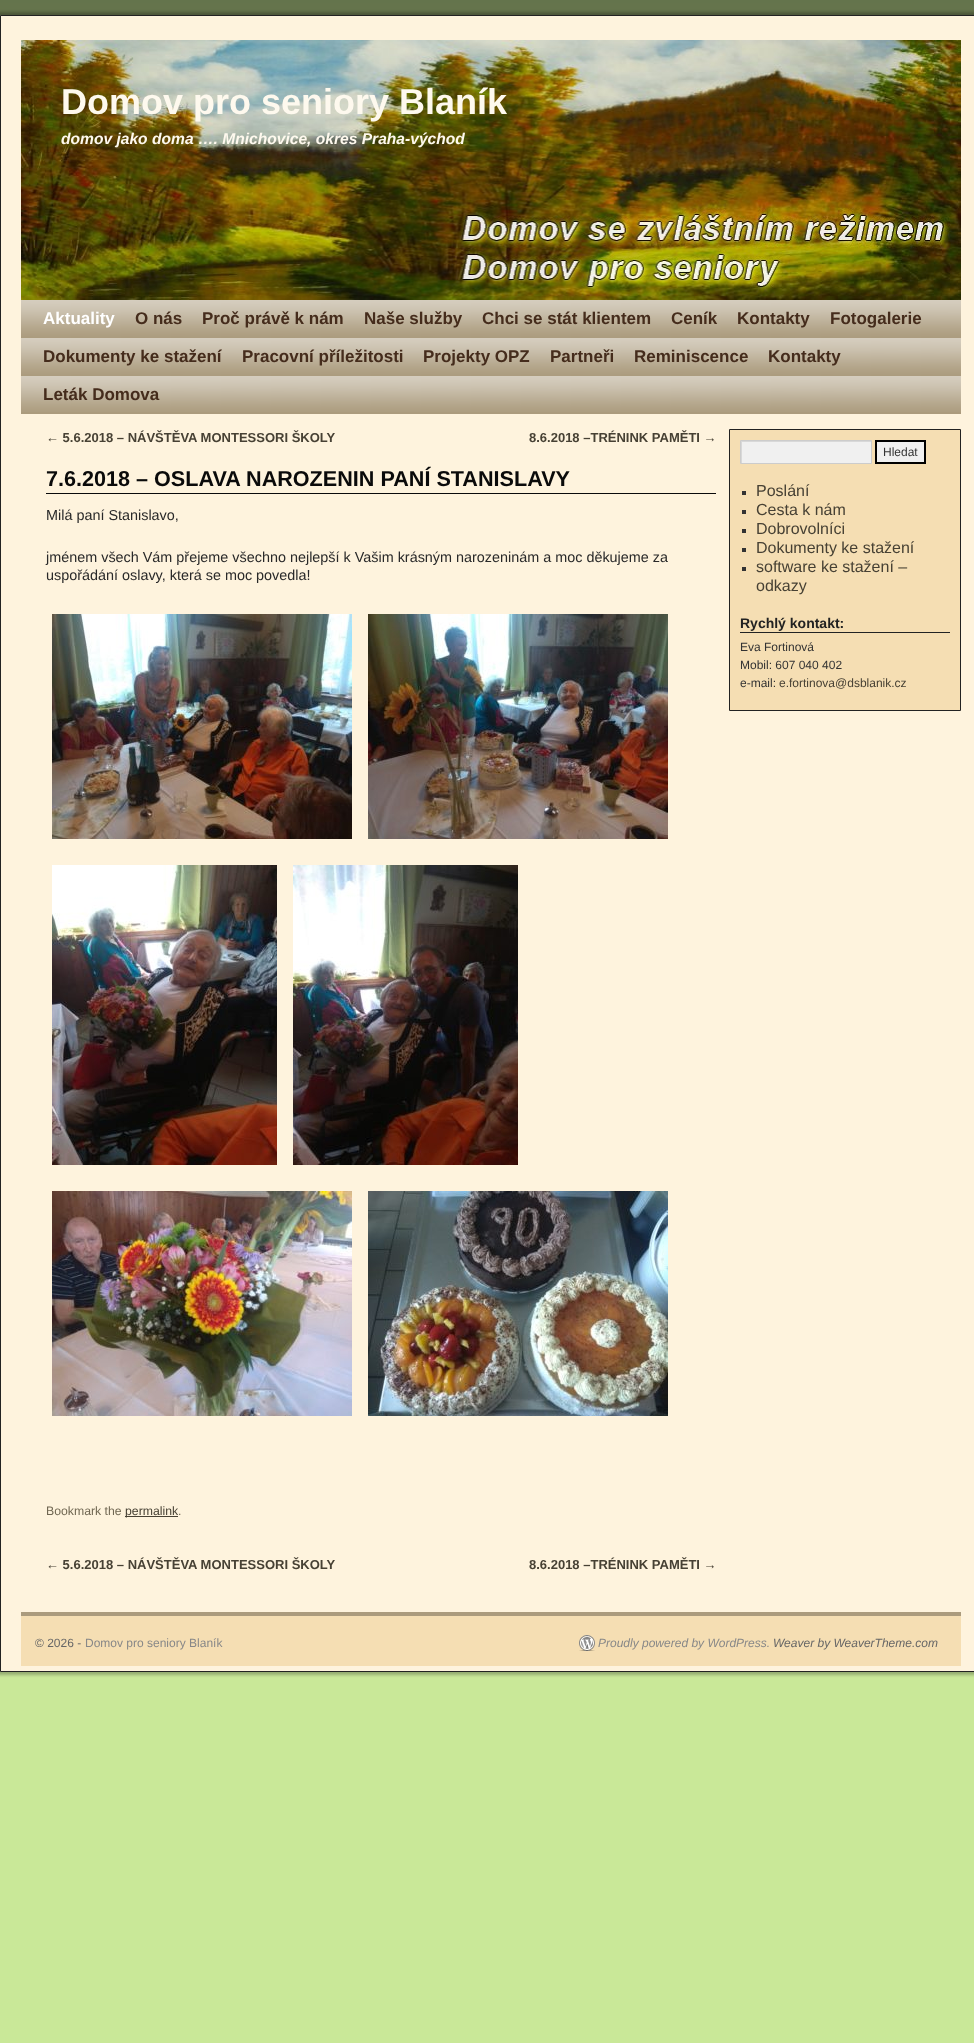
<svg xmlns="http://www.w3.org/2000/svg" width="974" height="2043">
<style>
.a{font:bold 36px Liberation Sans;fill:#fef9ee}
.b{font:italic bold 15.6px Liberation Sans;fill:#fef9ee}
.c{font:bold 17px Liberation Sans;fill:#fff}
.d{font:bold 17px Liberation Sans;fill:#452c1c}
.e{font:bold 13px Liberation Sans;fill:#474134}
.f{font:bold 21.6px Liberation Sans;fill:#0a0a0a}
.g{font:14.4px Liberation Sans;fill:#292929}
.h{font:12.25px Liberation Sans;fill:#706752}
.i{font:12.25px Liberation Sans;fill:#474134}
.j{font:12px Liberation Sans;fill:#333}
.k{font:16px Liberation Sans;fill:#474134}
.l{font:bold 14px Liberation Sans;fill:#222}
.m{font:12px Liberation Sans;fill:#474134}
.n{font:12px Liberation Sans;fill:#666}
.o{font:12px Liberation Sans;fill:#888}
.p{font:italic 12px Liberation Sans;fill:#888}
.q{font:italic 12px Liberation Sans;fill:#666}
</style>
<defs>
<clipPath id="clip1"><path d="M741 441h130v22H741z"/></clipPath>
</defs>
<rect width="100%" height="100%" fill="#c9e898"/>
<image href="1.png" x="0" y="0" width="974" height="15"/>
<path fill="#00000040" filter="blur(1.5px)" d="M-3 12h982v1663H-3z"/>
<path fill="#fef3dd" stroke="#222" d="M0.5 15.5h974v1656H0.5z"/>
<image href="2.png" x="21" y="40" width="940" height="260"/>
<path fill="#ab9b7d" d="M21 300h940v114H21z"/>
<image href="3.png" x="21" y="300" width="940" height="112"/>
<path fill="#0a0a0a" d="M46 493h670v1H46z"/>
<image href="4.png" x="52" y="614" width="300" height="225"/>
<image href="5.png" x="368" y="614" width="300" height="225"/>
<image href="6.png" x="52" y="865" width="225" height="300"/>
<image href="7.png" x="293" y="865" width="225" height="300"/>
<image href="8.png" x="52" y="1191" width="300" height="225"/>
<image href="9.png" x="368" y="1191" width="300" height="225"/>
<path fill="#474134" d="M125 1516h53v1H125z"/>
<path fill="#f5deb3" stroke="#222" d="M729.5 429.5h231v281H729.5z"/>
<path fill="#f0f0f0" d="M742 442h129v21H742z"/>
<g clip-path="url(#clip1)">
<path fill="#d8d8d8" fill-rule="evenodd" d="M642 342h328v220h-328zm100 100h130v22h-130z"/>
</g>
<path fill="none" stroke="#ccc" d="M740.5 440.5h131v23H740.5z"/>
<path fill="#f0f0f0" stroke="#000" stroke-width="2" d="M876 441h49v22H876z"/>
<path fill="#333" d="M742 491h4v4H742z"/>
<path fill="#333" d="M742 510h4v4H742z"/>
<path fill="#333" d="M742 529h4v4H742z"/>
<path fill="#333" d="M742 548h4v4H742z"/>
<path fill="#333" d="M742 567h4v4H742z"/>
<path fill="#222" d="M740 632h210v1H740z"/>
<path fill="#f5deb3" d="M21 1616h940v50H21z"/>
<path fill="#ab9b7d" d="M21 1612h940v4H21z"/>
<image href="10.png" x="579" y="1635" width="16" height="16"/>
<text class="a" x="61" y="114">Domov pro seniory Blaník</text>
<text class="b" x="61" y="144">domov jako doma …. Mnichovice, okres Praha-východ</text>
<text class="c" x="43" y="324">Aktuality</text>
<text class="d" x="135" y="324">O nás</text>
<text class="d" x="202" y="324">Proč právě k nám</text>
<text class="d" x="364" y="324">Naše služby</text>
<text class="d" x="482" y="324">Chci se stát klientem</text>
<text class="d" x="671" y="324">Ceník</text>
<text class="d" x="737" y="324">Kontakty</text>
<text class="d" x="830" y="324">Fotogalerie</text>
<text class="d" x="43" y="362">Dokumenty ke stažení</text>
<text class="d" x="242" y="362">Pracovní příležitosti</text>
<text class="d" x="423" y="362">Projekty OPZ</text>
<text class="d" x="550" y="362">Partneři</text>
<text class="d" x="634" y="362">Reminiscence</text>
<text class="d" x="768" y="362">Kontakty</text>
<text class="d" x="43" y="400">Leták Domova</text>
<text class="e" x="46" y="442">← 5.6.2018 – NÁVŠTĚVA MONTESSORI ŠKOLY</text>
<text class="e" x="529" y="442">8.6.2018 –TRÉNINK PAMĚTI →</text>
<text class="f" x="46" y="486">7.6.2018 – OSLAVA NAROZENIN PANÍ STANISLAVY</text>
<text class="g" x="46" y="520">Milá paní Stanislavo,</text>
<text class="g" x="46" y="562">jménem všech Vám přejeme všechno nejlepší k Vašim krásným narozeninám a moc děkujeme za</text>
<text class="g" x="46" y="580">uspořádání oslavy, která se moc povedla!</text>
<text class="h" x="46" y="1515">Bookmark the</text>
<text class="i" x="125" y="1515">permalink</text>
<text class="h" x="178" y="1515">.</text>
<text class="e" x="46" y="1569">← 5.6.2018 – NÁVŠTĚVA MONTESSORI ŠKOLY</text>
<text class="e" x="529" y="1569">8.6.2018 –TRÉNINK PAMĚTI →</text>
<text class="j" x="883" y="456">Hledat</text>
<text class="k" x="756" y="496">Poslání</text>
<text class="k" x="756" y="515">Cesta k nám</text>
<text class="k" x="756" y="534">Dobrovolníci</text>
<text class="k" x="756" y="553">Dokumenty ke stažení</text>
<text class="k" x="756" y="572">software ke stažení –</text>
<text class="k" x="756" y="591">odkazy</text>
<text class="l" x="740" y="628">Rychlý kontakt:</text>
<text class="j" x="740" y="651">Eva Fortinová</text>
<text class="j" x="740" y="669">Mobil: 607 040 402</text>
<text class="j" x="740" y="687">e-mail:</text>
<text class="m" x="779" y="687">e.fortinova@dsblanik.cz</text>
<text class="n" x="35" y="1647">© 2026 -</text>
<text class="o" x="85" y="1647">Domov pro seniory Blaník</text>
<text class="p" x="598" y="1647">Proudly powered by WordPress.</text>
<text class="q" x="773" y="1647">Weaver by WeaverTheme.com</text>
</svg>
